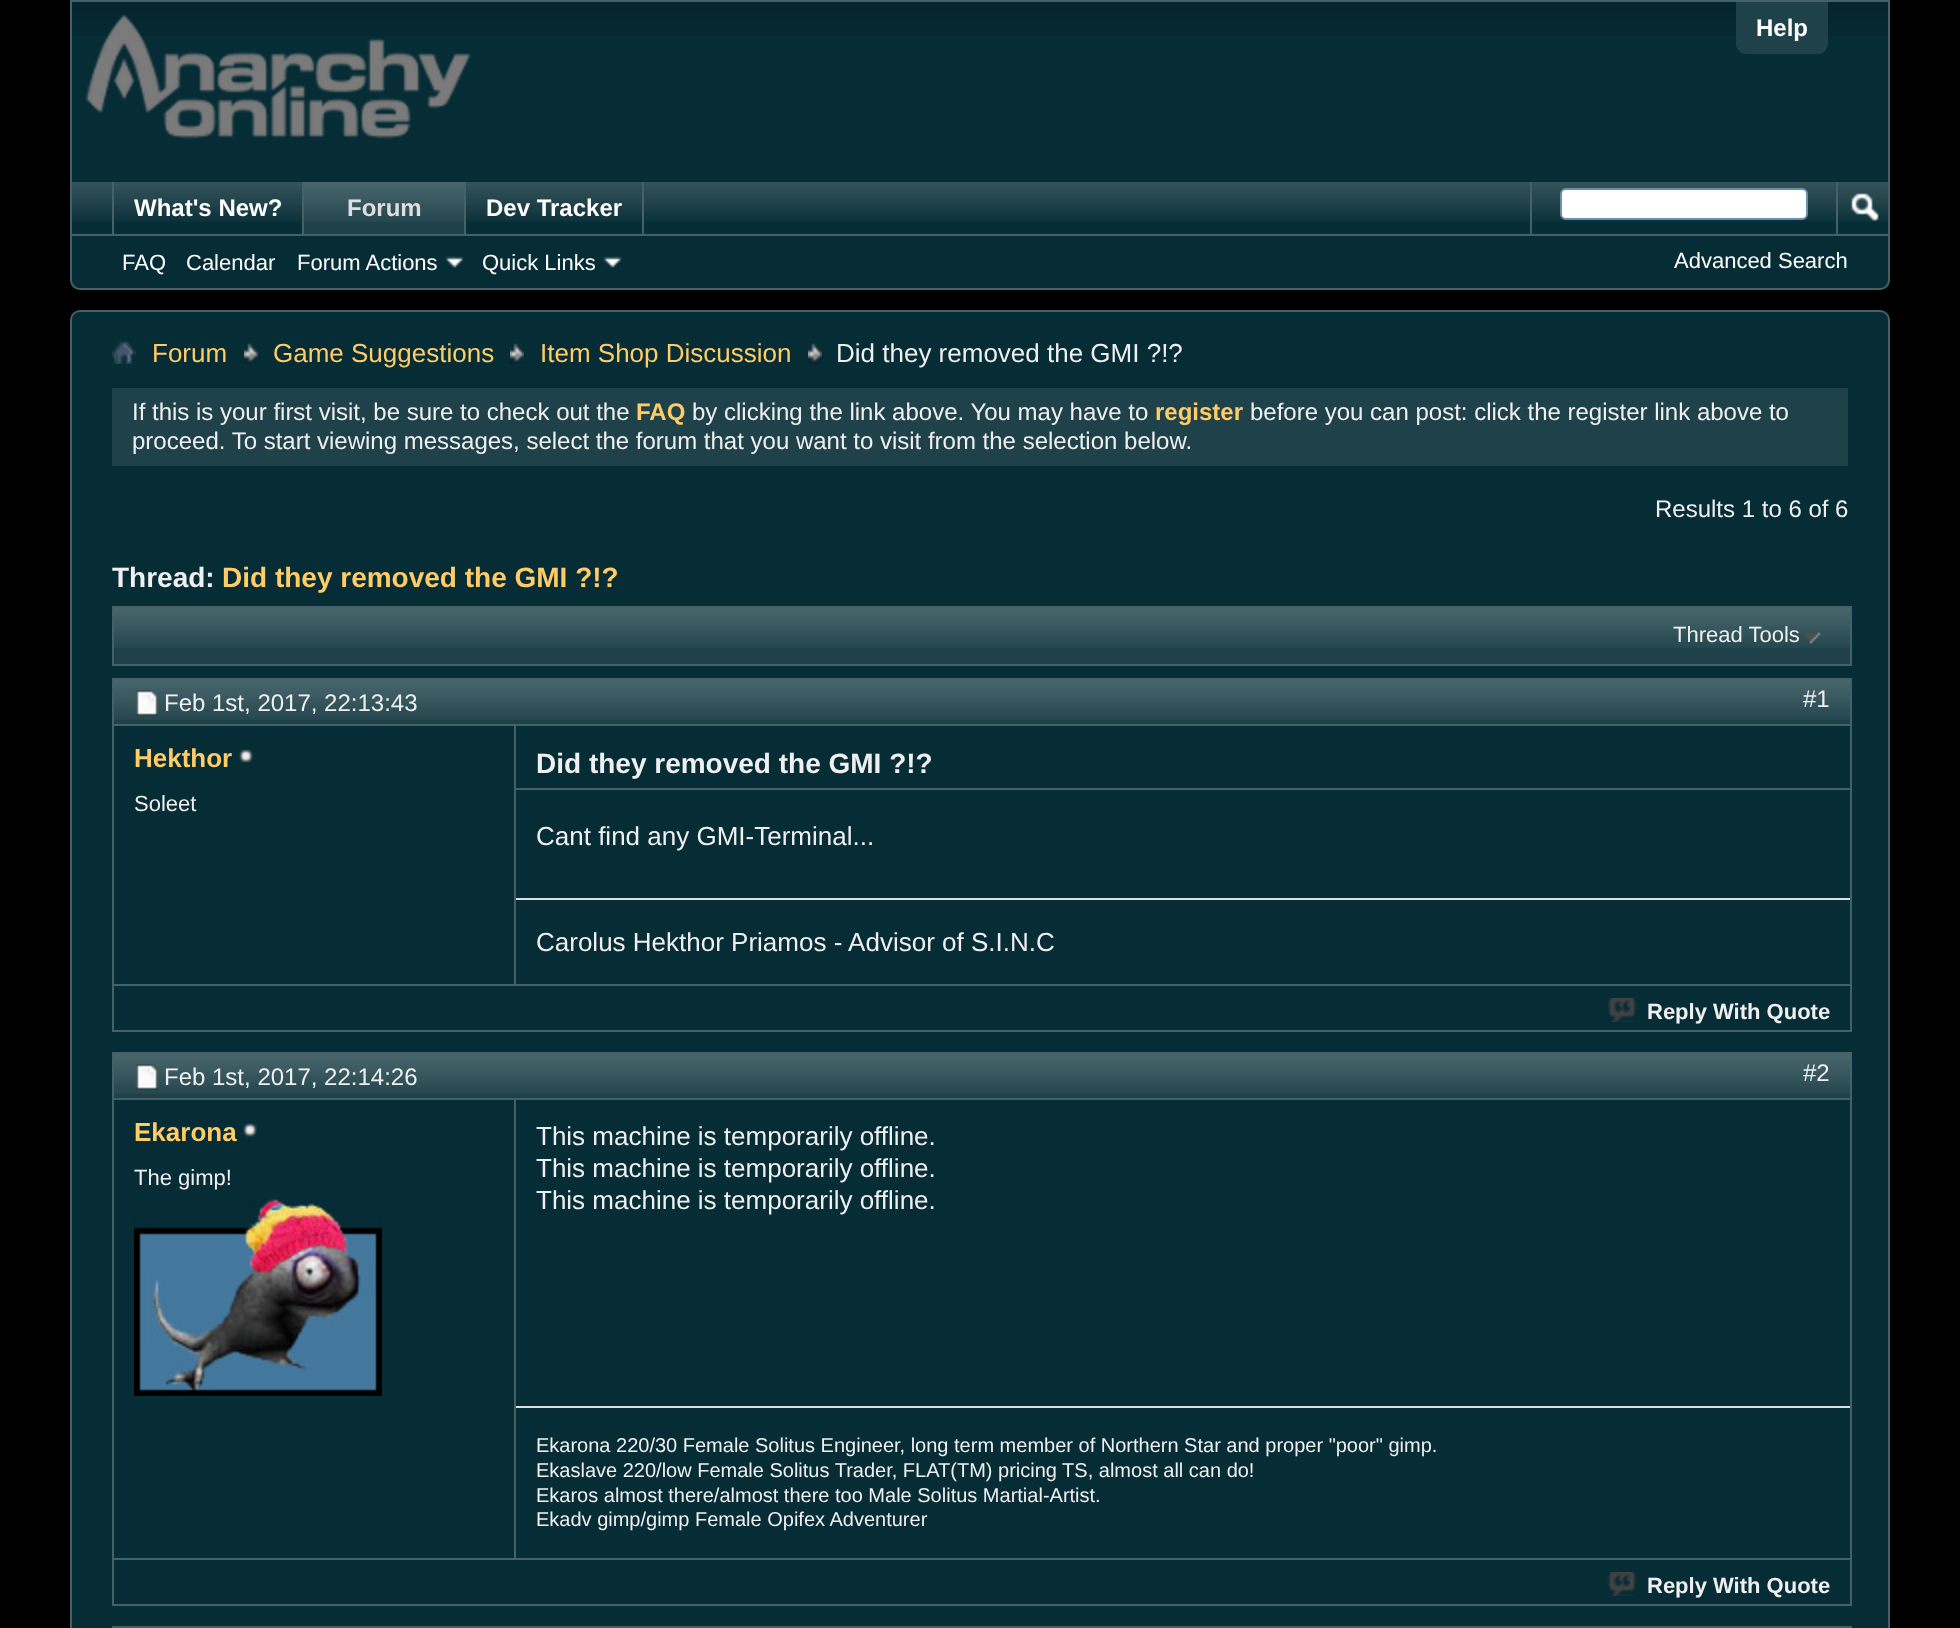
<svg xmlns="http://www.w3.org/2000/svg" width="1960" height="1628">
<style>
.a{font:bold 24px Liberation Sans;fill:#fff}
.b{font:bold 24px Liberation Sans;fill:#dfdfdf}
.c{font:22px Liberation Sans;fill:#fff}
.d{font:26px Liberation Sans;fill:#fc6}
.e{font:26px Liberation Sans;fill:#efefef}
.f{font:24px Liberation Sans;fill:#efefef}
.g{font:bold 24px Liberation Sans;fill:#fc6}
.h{font:bold 28px Liberation Sans;fill:#efefef}
.i{font:bold 28px Liberation Sans;fill:#fc6}
.j{font:22px Liberation Sans;fill:#efefef}
.k{font:bold 26px Liberation Sans;fill:#fc6}
.l{font:bold 22px Liberation Sans;fill:#efefef}
.m{font:20px Liberation Sans;fill:#efefef}
</style>
<rect width="100%" height="100%" fill="#000"/>
<path fill="#062c36" d="M70 0h1820v280c0 5.5-4.5 10-10 10h-1800c-5.5 0-10-4.5-10-10z"/>
<image href="1.png" x="72" y="2" width="1816" height="34"/>
<path fill="none" stroke="#446168" stroke-width="2" d="M71 1h1818v279c0 5-4 9-9 9h-1800c-5 0-9-4-9-9z"/>
<image href="2.png" x="85" y="14" width="386" height="125"/>
<path fill="#1f424a" d="M1736 2h92v42c0 5.5-4.5 10-10 10h-72c-5.5 0-10-4.5-10-10z"/>
<path fill="#062c35" d="M72 182h1816v96c0 5.5-4.5 10-10 10h-1796c-5.5 0-10-4.5-10-10z"/>
<image href="3.png" x="72" y="182" width="1816" height="40"/>
<path fill="#446168" d="M302 182h2v52H302z"/>
<path fill="#446168" d="M112 182h2v52H112z"/>
<path fill="#062c35" d="M114 182h188v40H114z"/>
<image href="4.png" x="114" y="182" width="188" height="40"/>
<path fill="#446168" d="M464 182h2v52H464z"/>
<path fill="#1f424a" d="M304 182h160v52H304z"/>
<image href="5.png" x="304" y="182" width="160" height="40"/>
<path fill="#446168" d="M642 182h2v52H642z"/>
<path fill="#062c35" d="M466 182h176v40H466z"/>
<image href="6.png" x="466" y="182" width="176" height="40"/>
<path fill="#446168" d="M72 234h1816v2H72z"/>
<image href="7.png" x="445" y="256" width="19" height="12"/>
<image href="7.png" x="603" y="256" width="19" height="12"/>
<path fill="#446168" d="M1530 182h2v52H1530z"/>
<rect fill="#fff" stroke="#6b91ab" stroke-width="2" x="1561" y="189" width="246" height="30" rx="5"/>
<path fill="#446168" d="M1836 182h2v52H1836z"/>
<image href="8.png" x="1851" y="193" width="28" height="29"/>
<rect fill="#062c36" stroke="#446168" stroke-width="2" x="71" y="311" width="1818" height="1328" rx="9"/>
<image href="9.png" x="112" y="340" width="24" height="24"/>
<image href="10.png" x="244" y="343" width="14" height="21"/>
<image href="10.png" x="510" y="343" width="14" height="21"/>
<image href="10.png" x="808" y="343" width="14" height="21"/>
<path fill="#1f424a" d="M112 388h1736v78H112z"/>
<path fill="#1f424a" d="M114 608h1736v56H114z"/>
<image href="11.png" x="114" y="608" width="1736" height="40"/>
<path fill="none" stroke="#446168" stroke-width="2" d="M113 607h1738v58H113z"/>
<image href="12.png" x="1802" y="631" width="19" height="13"/>
<path fill="none" stroke="#446168" stroke-width="2" d="M113 679h1738v352H113z"/>
<path fill="#1f424a" d="M114 680h1736v44H114z"/>
<image href="11.png" x="114" y="680" width="1736" height="40"/>
<path fill="none" stroke="#446168" stroke-width="2" d="M113 679h1738v46H113z"/>
<image href="13.png" x="135" y="690" width="24" height="26"/>
<image href="14.png" x="239" y="749" width="14" height="14"/>
<path fill="#446168" d="M514 726h2v258H514z"/>
<path fill="#446168" d="M516 788h1334v2H516z"/>
<path fill="#ddd" d="M516 898h1334v2H516z"/>
<path fill="#446168" d="M114 984h1736v2H114z"/>
<image href="15.png" x="1607" y="998" width="30" height="24"/>
<path fill="none" stroke="#446168" stroke-width="2" d="M113 1053h1738v552H113z"/>
<path fill="#1f424a" d="M114 1054h1736v44H114z"/>
<image href="11.png" x="114" y="1054" width="1736" height="40"/>
<path fill="none" stroke="#446168" stroke-width="2" d="M113 1053h1738v46H113z"/>
<image href="13.png" x="135" y="1064" width="24" height="26"/>
<image href="14.png" x="243" y="1123" width="14" height="14"/>
<image href="16.png" x="134" y="1198" width="248" height="198"/>
<path fill="#446168" d="M514 1100h2v458H514z"/>
<path fill="#ddd" d="M516 1406h1334v2H516z"/>
<path fill="#446168" d="M114 1558h1736v2H114z"/>
<image href="15.png" x="1607" y="1572" width="30" height="24"/>
<path fill="none" stroke="#446168" stroke-width="2" d="M113 1627h1738v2H113z"/>
<text class="a" x="1756" y="36">Help</text>
<text class="a" x="134" y="216">What's New?</text>
<text class="b" x="347" y="216">Forum</text>
<text class="a" x="486" y="216">Dev Tracker</text>
<text class="c" x="122" y="270">FAQ</text>
<text class="c" x="186" y="270">Calendar</text>
<text class="c" x="297" y="270">Forum Actions</text>
<text class="c" x="482" y="270">Quick Links</text>
<text class="c" x="1674" y="268">Advanced Search</text>
<text class="d" x="152" y="362">Forum</text>
<text class="d" x="273" y="362">Game Suggestions</text>
<text class="d" x="540" y="362">Item Shop Discussion</text>
<text class="e" x="836" y="362">Did they removed the GMI ?!?</text>
<text class="f" x="132" y="420">If this is your first visit, be sure to check out the</text>
<text class="g" x="636" y="420">FAQ</text>
<text class="f" x="692" y="420">by clicking the link above. You may have to</text>
<text class="g" x="1155" y="420">register</text>
<text class="f" x="1250" y="420">before you can post: click the register link above to</text>
<text class="f" x="132" y="449">proceed. To start viewing messages, select the forum that you want to visit from the selection below.</text>
<text class="f" x="1655" y="517">Results 1 to 6 of 6</text>
<text class="h" x="112" y="587">Thread:</text>
<text class="i" x="222" y="587">Did they removed the GMI ?!?</text>
<text class="j" x="1673" y="642">Thread Tools</text>
<text class="f" x="164" y="711">Feb 1st, 2017, 22:13:43</text>
<text class="f" x="1803" y="707">#1</text>
<text class="k" x="134" y="767">Hekthor</text>
<text class="j" x="134" y="811">Soleet</text>
<text class="h" x="536" y="773">Did they removed the GMI ?!?</text>
<text class="e" x="536" y="845">Cant find any GMI-Terminal...</text>
<text class="e" x="536" y="951">Carolus Hekthor Priamos - Advisor of S.I.N.C</text>
<text class="l" x="1647" y="1019">Reply With Quote</text>
<text class="f" x="164" y="1085">Feb 1st, 2017, 22:14:26</text>
<text class="f" x="1803" y="1081">#2</text>
<text class="k" x="134" y="1141">Ekarona</text>
<text class="j" x="134" y="1185">The gimp!</text>
<text class="e" x="536" y="1145">This machine is temporarily offline.</text>
<text class="e" x="536" y="1177">This machine is temporarily offline.</text>
<text class="e" x="536" y="1209">This machine is temporarily offline.</text>
<text class="m" x="536" y="1452">Ekarona 220/30 Female Solitus Engineer, long term member of Northern Star and proper "poor" gimp.</text>
<text class="m" x="536" y="1477">Ekaslave 220/low Female Solitus Trader, FLAT(TM) pricing TS, almost all can do!</text>
<text class="m" x="536" y="1502">Ekaros almost there/almost there too Male Solitus Martial-Artist.</text>
<text class="m" x="536" y="1526">Ekadv gimp/gimp Female Opifex Adventurer</text>
<text class="l" x="1647" y="1593">Reply With Quote</text>
</svg>
